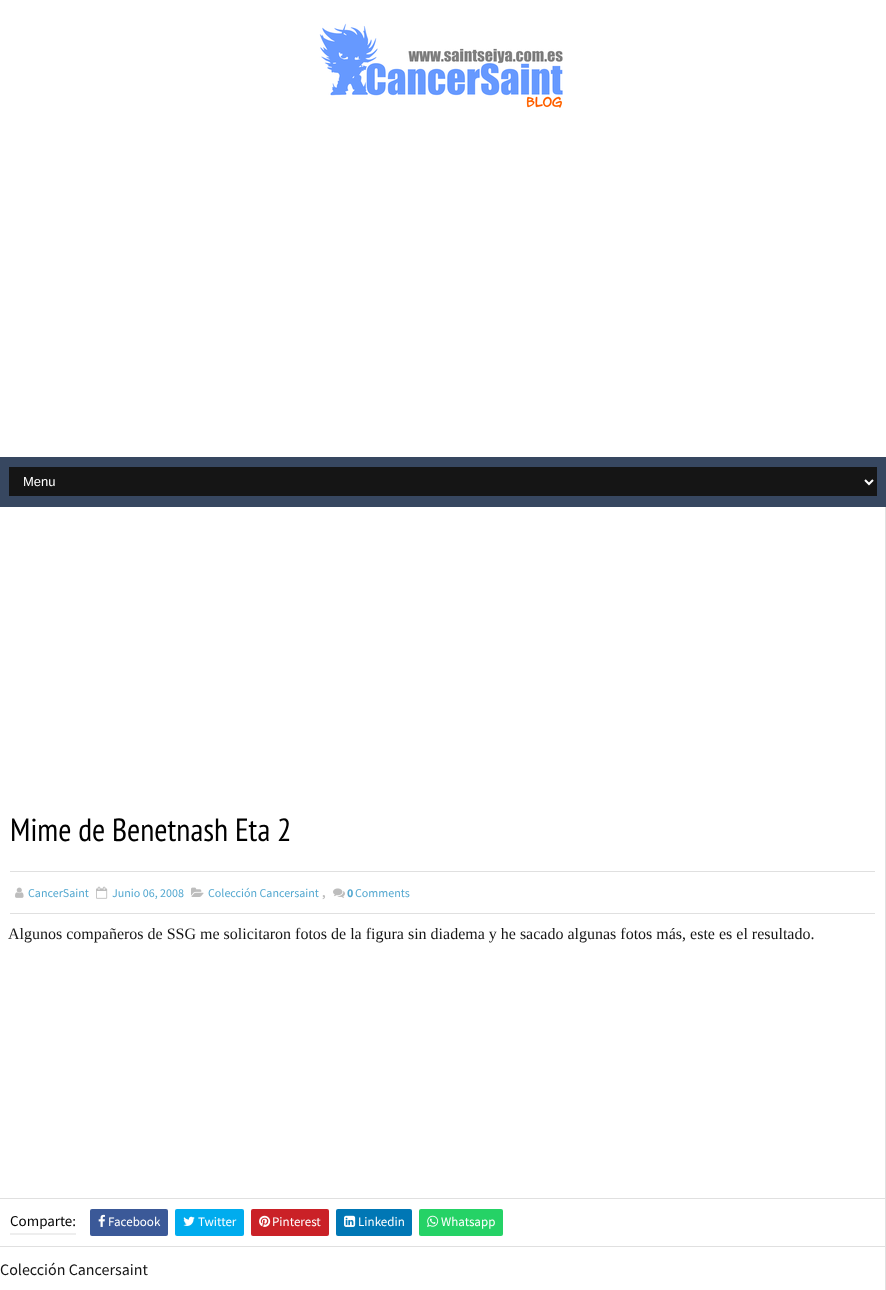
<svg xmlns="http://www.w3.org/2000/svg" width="886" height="1290">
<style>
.a{font:13px Liberation Sans;fill:#fff}
.b{font:32px PT Sans Narrow;fill:#000}
.c{font:12px Source Sans Pro;fill:#54a8d0}
.d{font:bold 12px Source Sans Pro;fill:#bdbdbd}
.e{font:bold 12px Source Sans Pro;fill:#54a8d0}
.f{font:16px Liberation Serif;fill:#151515}
.g{font:15px Source Sans Pro;fill:#000}
.h{font:13px Source Sans Pro;fill:#fff}
.i{font:16px Source Sans Pro;fill:#151515}
</style>
<rect width="100%" height="100%" fill="#fff"/>
<image href="1.png" x="319" y="23" width="244" height="85"/>
<path fill="#374760" d="M0 457h886v50H0z"/>
<path fill="#151515" d="M9 467h868v29H9z"/>
<path fill="none" stroke="#fff" stroke-width="2" d="M865 480l4 4l4-4"/>
<path fill="#e0e0e0" d="M885 507h1v783H885z"/>
<path fill="#e0e0e0" d="M10 871h865v1H10z"/>
<path fill="#e0e0e0" d="M10 913h865v1H10z"/>
<image href="2.png" x="15" y="887" width="9" height="11"/>
<image href="3.png" x="96" y="886" width="12" height="13"/>
<image href="4.png" x="191" y="887" width="13" height="10"/>
<image href="5.png" x="333" y="888" width="12" height="10"/>
<path fill="#e0e0e0" d="M0 1198h885v1H0z"/>
<path fill="#e0e0e0" d="M0 1246h885v1H0z"/>
<path fill="#eee" d="M10 1233h66v2H10z"/>
<rect fill="#3b5998" x="90" y="1209" width="78" height="27" rx="2"/>
<image href="6.png" x="98" y="1214" width="7" height="13"/>
<rect fill="#00acee" x="175" y="1209" width="69" height="27" rx="2"/>
<image href="7.png" x="183" y="1216" width="12" height="10"/>
<rect fill="#ca2127" x="251" y="1209" width="78" height="27" rx="2"/>
<image href="8.png" x="259" y="1215" width="12" height="12"/>
<rect fill="#0077b5" x="336" y="1209" width="76" height="27" rx="2"/>
<image href="9.png" x="344" y="1215" width="12" height="12"/>
<rect fill="#25d266" x="419" y="1209" width="84" height="27" rx="2"/>
<image href="10.png" x="427" y="1215" width="12" height="12"/>
<text class="a" x="23" y="486">Menu</text>
<text class="b" x="10" y="841">Mime de Benetnash Eta 2</text>
<text class="c" x="28" y="897">CancerSaint</text>
<text class="c" x="112" y="897">Junio 06, 2008</text>
<text class="c" x="208" y="897">Colección Cancersaint</text>
<text class="d" x="322" y="897">,</text>
<text class="e" x="347" y="897">0</text>
<text class="c" x="355" y="897">Comments</text>
<text class="f" x="8" y="939">Algunos compañeros de SSG me solicitaron fotos de la figura sin diadema y he sacado algunas fotos más, este es el resultado.</text>
<text class="g" x="10" y="1226">Comparte:</text>
<text class="h" x="108" y="1226">Facebook</text>
<text class="h" x="198" y="1226">Twitter</text>
<text class="h" x="272" y="1226">Pinterest</text>
<text class="h" x="358" y="1226">Linkedin</text>
<text class="h" x="441" y="1226">Whatsapp</text>
<text class="i" x="0" y="1275">Colección Cancersaint</text>
</svg>
